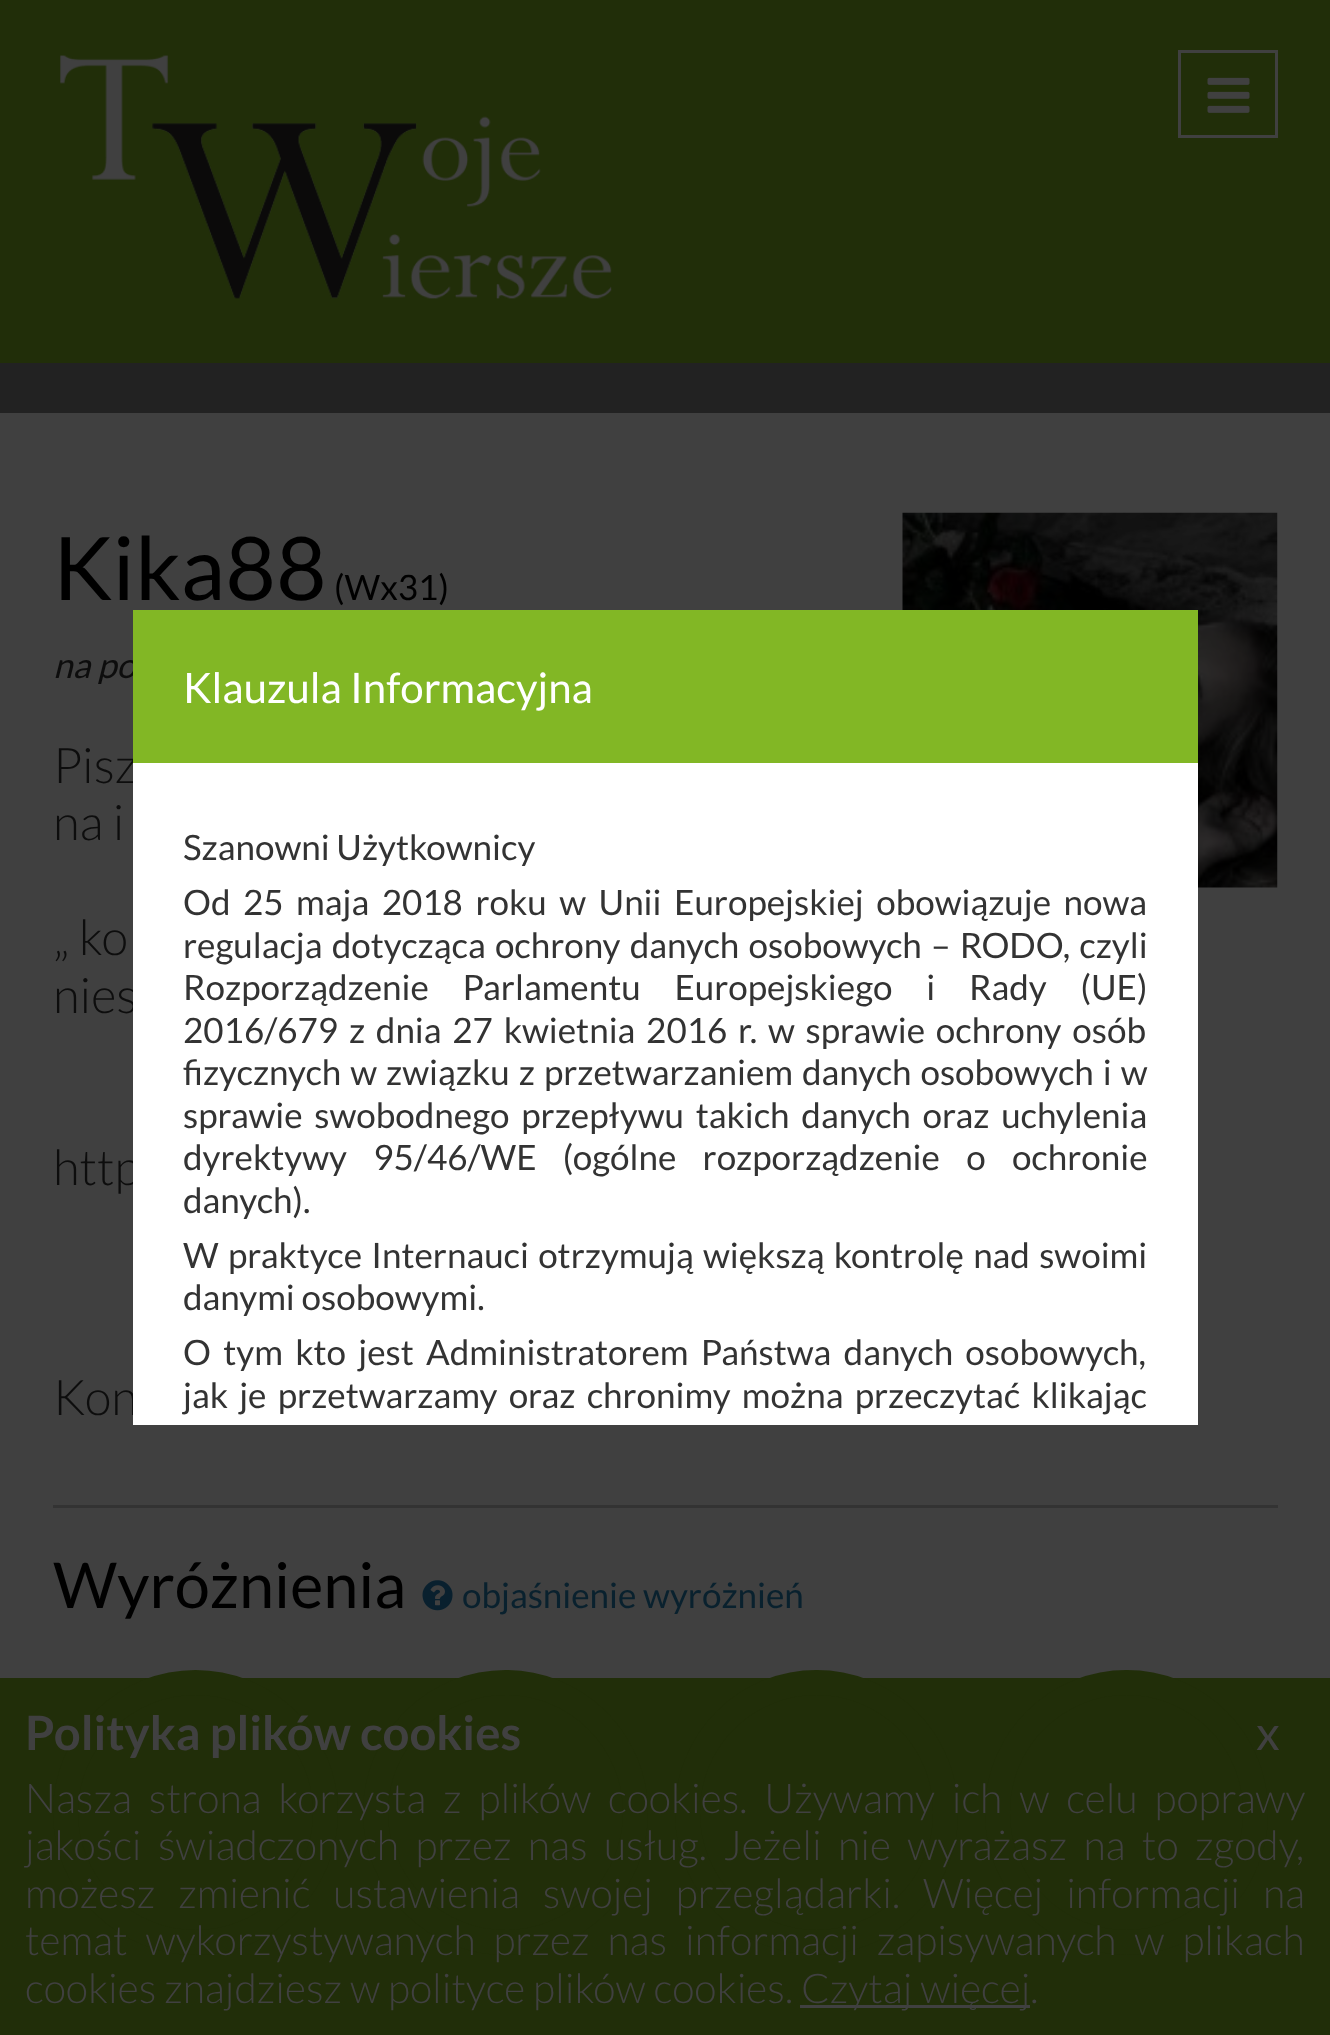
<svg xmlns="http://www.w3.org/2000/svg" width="1330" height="2035">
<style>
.a{font:87.5px Lato;fill:#000}
.b{font:35px Lato;fill:#000}
.c{font:italic 35px Lato;fill:#0d0d0d}
.d{font:300 49px Lato;fill:#0d0d0d}
.e{font:63px Lato;fill:#000}
.f{font:35px Lato;fill:#09212e}
.g{font:42px Lato;fill:#fff}
.h{font:35px Lato;fill:#333}
.i{font:bold 47.25px Lato;fill:#404040}
.j{font:47.25px Lato;fill:#404040}
.k{font:300 40.95px Lato;fill:#404040}
</style>
<rect width="100%" height="100%" fill="#212e09"/>
<image href="1.png" x="60" y="55" width="552" height="244"/>
<path fill="none" stroke="#404040" stroke-width="3" d="M1179.5 51.5h97v85H1179.5z"/>
<image href="2.png" x="1207" y="77" width="43" height="36"/>
<path fill="#222" d="M0 363h1330v50H0z"/>
<path fill="#404040" d="M0 413h1330v1265H0z"/>
<image href="3.png" x="902" y="512" width="376" height="376"/>
<path fill="#333" d="M53 1505h1225v3H53z"/>
<image href="4.png" x="422" y="1580" width="31" height="31"/>
<circle fill="none" stroke="#212e09" stroke-width="25" cx="195.5" cy="1812.5" r="130"/>
<circle fill="none" stroke="#212e09" stroke-width="25" cx="505.5" cy="1812.5" r="130"/>
<rect fill="none" stroke="#212e09" stroke-width="25" x="687.5" y="1682.5" width="258" height="260" rx="129"/>
<rect fill="none" stroke="#212e09" stroke-width="25" x="997.5" y="1682.5" width="258" height="260" rx="129"/>
<path fill="#404040" d="M800 2005h230v3H800z"/>
<text class="a" x="53" y="600">Kika88</text>
<text class="b" x="334" y="600">(Wx31)</text>
<text class="c" x="53" y="678">na po</text>
<text class="d" x="53" y="783">Pisz</text>
<text class="d" x="53" y="840">na i</text>
<text class="d" x="53" y="955">„ ko</text>
<text class="d" x="53" y="1013">nies</text>
<text class="d" x="53" y="1185">http</text>
<text class="d" x="53" y="1415">Kon</text>
<text class="e" x="53" y="1608">Wyróżnienia</text>
<text class="f" x="462" y="1608">objaśnienie wyróżnień</text>
<path fill="#fff" d="M133 763h1065v662H133z"/>
<path fill="#82b725" d="M133 610h1065v153H133z"/>
<text class="g" x="183" y="703">Klauzula Informacyjna</text>
<text class="h" x="183" y="860">Szanowni Użytkownicy</text>
<text class="h" x="183" y="915" word-spacing="5.75">Od 25 maja 2018 roku w Unii Europejskiej obowiązuje nowa</text>
<text class="h" x="183" y="958" word-spacing="2.5">regulacja dotycząca ochrony danych osobowych – RODO, czyli</text>
<text class="h" x="183" y="1000" word-spacing="27">Rozporządzenie Parlamentu Europejskiego i Rady (UE)</text>
<text class="h" x="183" y="1043" word-spacing="4">2016/679 z dnia 27 kwietnia 2016 r. w sprawie ochrony osób</text>
<text class="h" x="183" y="1085" word-spacing="2.25">fizycznych w związku z przetwarzaniem danych osobowych i w</text>
<text class="h" x="183" y="1128" word-spacing="5">sprawie swobodnego przepływu takich danych oraz uchylenia</text>
<text class="h" x="183" y="1170" word-spacing="19.5">dyrektywy 95/46/WE (ogólne rozporządzenie o ochronie</text>
<text class="h" x="183" y="1213">danych).</text>
<text class="h" x="183" y="1268" word-spacing="2.5">W praktyce Internauci otrzymują większą kontrolę nad swoimi</text>
<text class="h" x="183" y="1310">danymi osobowymi.</text>
<text class="h" x="183" y="1365" word-spacing="5.5">O tym kto jest Administratorem Państwa danych osobowych,</text>
<text class="h" x="183" y="1408" word-spacing="4.5">jak je przetwarzamy oraz chronimy można przeczytać klikając</text>
<text class="i" x="25" y="1750">Polityka plików cookies</text>
<text class="j" x="1256" y="1750">x</text>
<text class="k" x="25" y="1813" word-spacing="9">Nasza strona korzysta z plików cookies. Używamy ich w celu poprawy</text>
<text class="k" x="25" y="1860" word-spacing="8.5">jakości świadczonych przez nas usług. Jeżeli nie wyrażasz na to zgody,</text>
<text class="k" x="25" y="1908" word-spacing="15">możesz zmienić ustawienia swojej przeglądarki. Więcej informacji na</text>
<text class="k" x="25" y="1955" word-spacing="10">temat wykorzystywanych przez nas informacji zapisywanych w plikach</text>
<text class="k" x="25" y="2003">cookies znajdziesz w polityce plików cookies.</text>
<text class="k" x="801" y="2003">Czytaj więcej.</text>
</svg>
